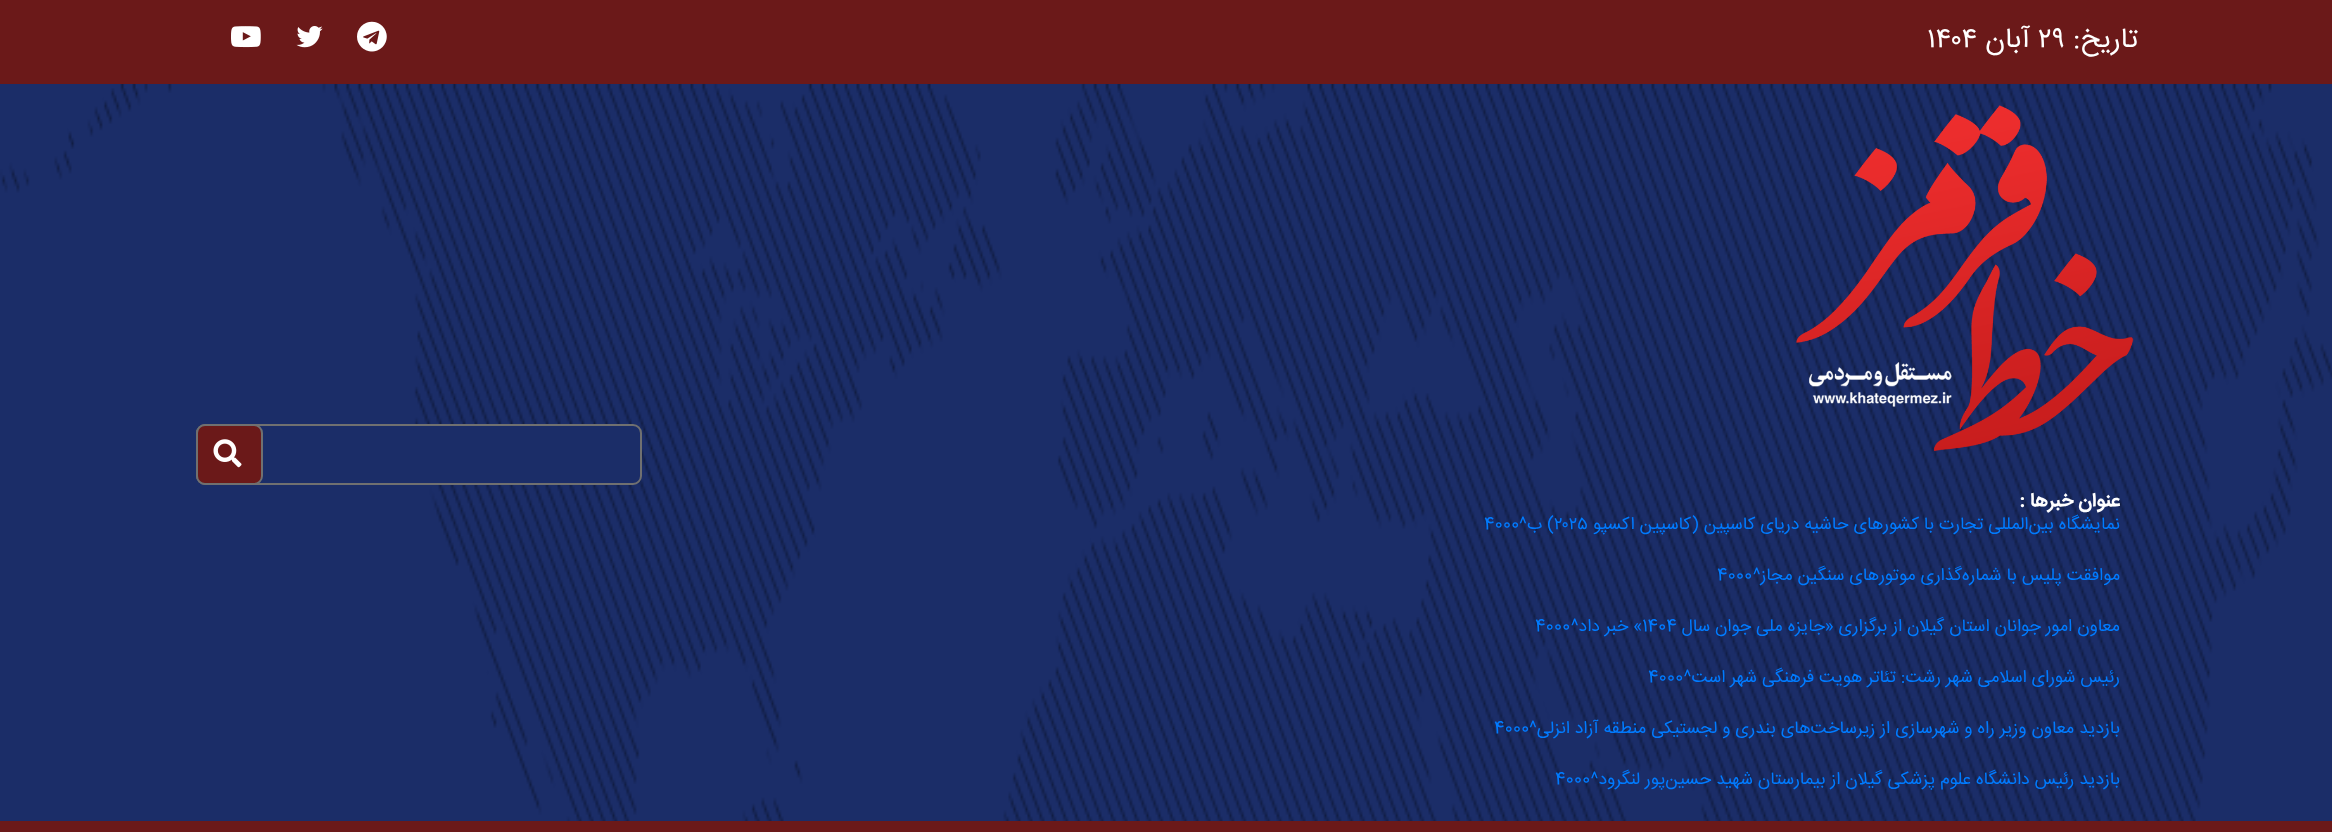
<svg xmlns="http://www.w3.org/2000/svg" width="2332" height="832">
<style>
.a{font:28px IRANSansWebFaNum;direction:rtl;fill:#fff}
.b{font:28px IRANSansWebFaNum;fill:#fff}
.c{font:bold 19.25px IRANSansWebFaNum;direction:rtl;fill:#fff}
.d{font:17.5px IRANSansWebFaNum;direction:rtl;fill:#007bff}
.e{font:17.5px IRANSansWebFaNum;fill:#007bff}
</style>
<rect width="100%" height="100%" fill="#6b1919"/>
<image href="1.png" x="357" y="21" width="30" height="31"/>
<image href="2.png" x="296" y="26" width="27" height="22"/>
<image href="3.png" x="231" y="26" width="30" height="22"/>
<path fill="#1b2d68" d="M0 84h2332v737H0z"/>
<image href="4.png" x="0" y="84" width="2332" height="737"/>
<rect fill="#1b2d68" stroke="#707070" stroke-width="2" x="197" y="425" width="444" height="59" rx="8"/>
<rect fill="#6b1919" stroke="#707070" stroke-width="2" x="197" y="425" width="65" height="59" rx="8"/>
<image href="5.png" x="213" y="439" width="29" height="29"/>
<image href="6.png" x="1796" y="105" width="338" height="346"/>
<text class="a" x="2138" y="47">تاریخ:</text>
<text class="b" x="2038" y="47">۲۹</text>
<text class="a" x="2030" y="47">آبان</text>
<text class="b" x="1927" y="47">۱۴۰۴</text>
<text class="c" x="2120" y="506">عنوان خبرها :</text>
<text class="d" x="2120" y="529">نمایشگاه بین‌المللی تجارت با کشورهای حاشیه دریای کاسپین (کاسپین اکسپو</text>
<text class="e" x="1554" y="529">۲۰۲۵</text>
<text class="d" x="1554" y="529">) ب^</text>
<text class="e" x="1484" y="529">4000</text>
<text class="d" x="2120" y="580">موافقت پلیس با شماره‌گذاری موتورهای سنگین مجاز^</text>
<text class="e" x="1717" y="580">4000</text>
<text class="d" x="2120" y="631">معاون امور جوانان استان گیلان از برگزاری «جایزه ملی جوان سال</text>
<text class="e" x="1642" y="631">1404</text>
<text class="d" x="1642" y="631">» خبر داد^</text>
<text class="e" x="1535" y="631">4000</text>
<text class="d" x="2120" y="682">رئیس شورای اسلامی شهر رشت: تئاتر هویت فرهنگی شهر است^</text>
<text class="e" x="1648" y="682">4000</text>
<text class="d" x="2120" y="733">بازدید معاون وزیر راه و شهرسازی از زیرساخت‌های بندری و لجستیكی منطقه آزاد انزلی^</text>
<text class="e" x="1494" y="733">4000</text>
<text class="d" x="2120" y="784">بازدید رئیس دانشگاه علوم پزشکی گیلان از بیمارستان شهید حسین‌پور لنگرود^</text>
<text class="e" x="1555" y="784">4000</text>
</svg>
